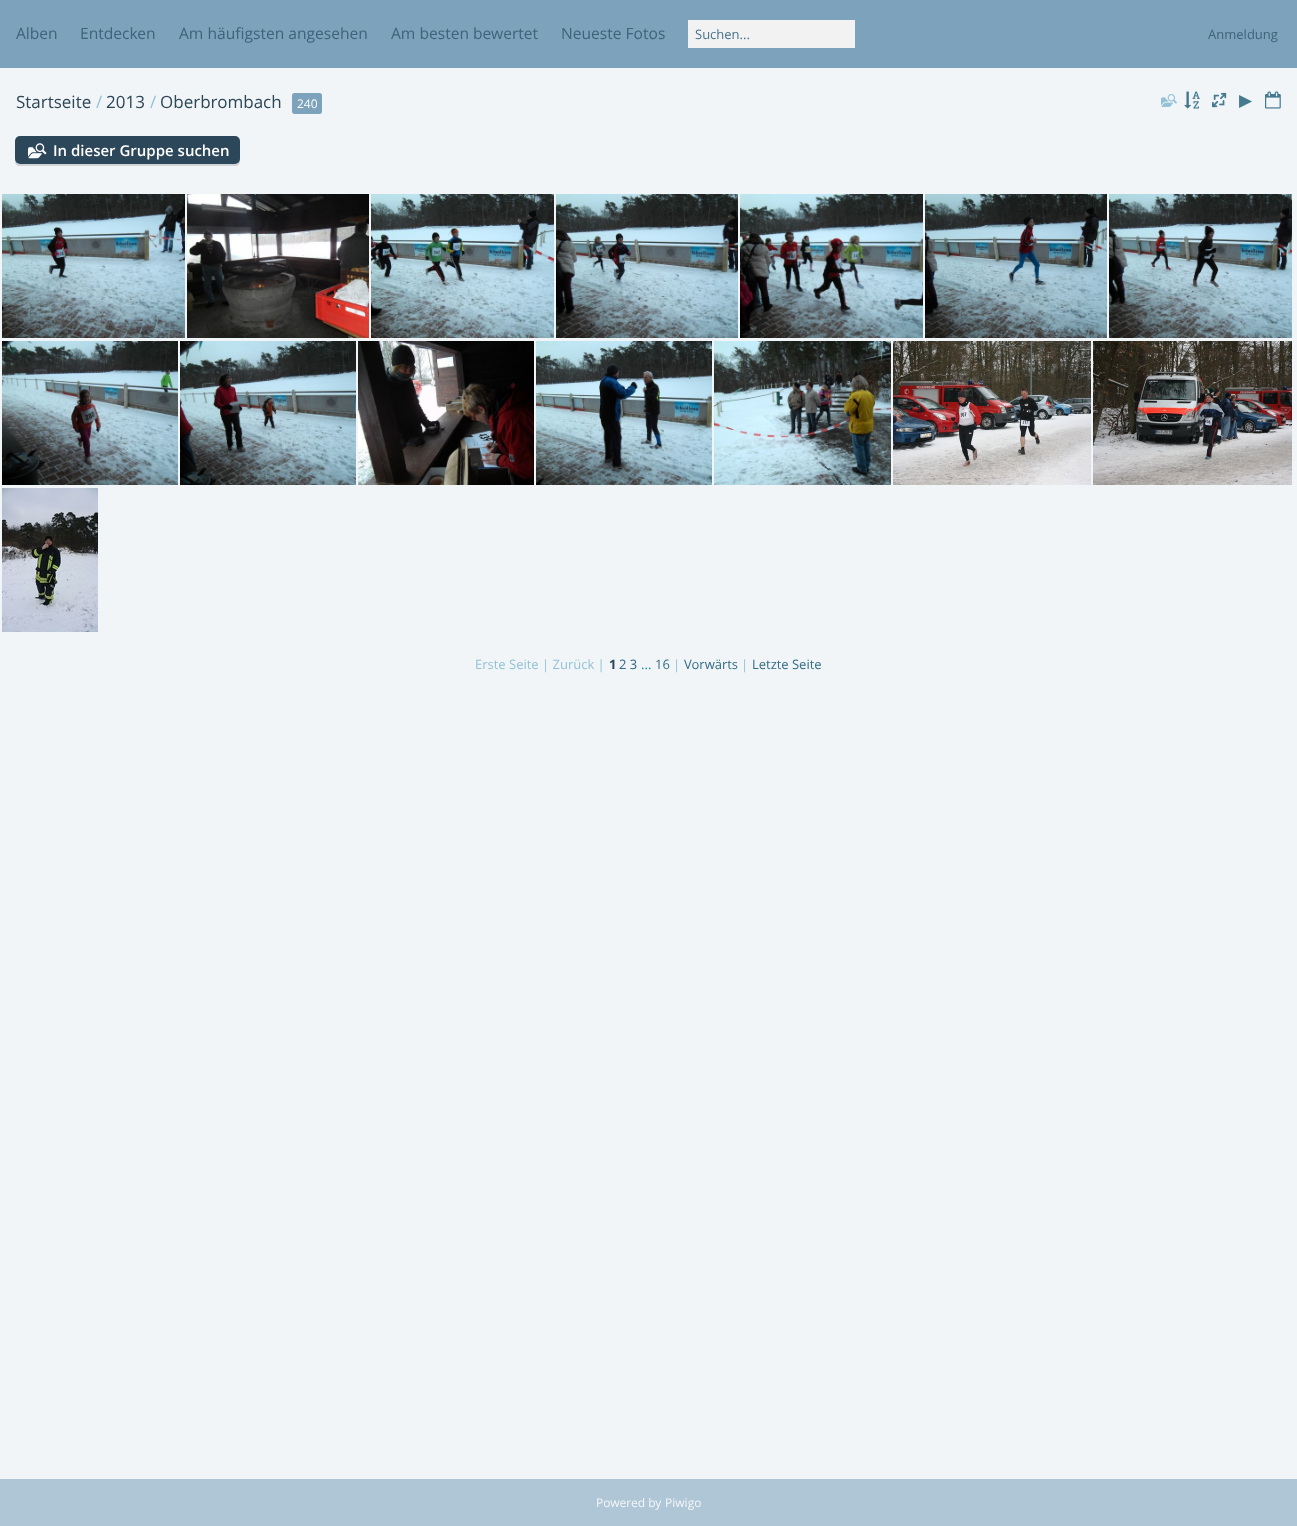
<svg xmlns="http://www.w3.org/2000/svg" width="1297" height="1526">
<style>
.a{font:15.6px Open Sans;fill:#3f6379}
.b{font:13px Open Sans;fill:#48718a}
.c{font:13px Open Sans;fill:#3f6379}
.d{font:17px Open Sans;fill:#2e4756}
.e{font:17px Open Sans;fill:#93c2d6}
.f{font:12px Open Sans;fill:#fff}
.g{font:17px DejaVu Sans;fill:#457a90}
.h{font:600 15px Open Sans;fill:#fff}
.i{font:13px Open Sans;fill:#93c2d6}
.j{font:bold 13px Open Sans;fill:#2e4756}
.k{font:13px Open Sans;fill:#326c84}
.l{font:13px Open Sans;fill:#0391aa}
.m{font:12px Open Sans;fill:#f3f6f9}
</style>
<rect width="100%" height="100%" fill="#f1f5f8"/>
<path fill="#7ca2bc" d="M0 0h1297v68H0z"/>
<path fill="#f2f2f2" d="M688 20h167v28H688z"/>
<path fill="#7ca2bc" d="M294.5 93h2.5v21h-2.5c-1.5 0-2.5-1-2.5-2.5v-16c0-1.5 1-2.5 2.5-2.5z"/>
<path fill="#7ca2bc" d="M297 93h20v21H297z"/>
<path fill="#7ca2bc" d="M317 93h2.5c1.5 0 2.5 1 2.5 2.5v16c0 1.5-1 2.5-2.5 2.5h-2.5z"/>
<image href="1.png" x="1161" y="94" width="16" height="13"/>
<image href="2.png" x="1184" y="91" width="16" height="18"/>
<image href="3.png" x="1212" y="92" width="15" height="16"/>
<image href="4.png" x="1265" y="91" width="16" height="18"/>
<path fill="#cfd3d5" d="M15 159v2c0 3 2 5 5 5h215c3 0 5-2 5-5v-2c0 3-2 5-5 5h-215c-3 0-5-2-5-5z"/>
<rect fill="#2c465a" x="15" y="136" width="225" height="28" rx="5"/>
<image href="5.png" x="28" y="143" width="19" height="16"/>
<image href="6.png" x="2" y="194" width="183" height="144"/>
<image href="7.png" x="187" y="194" width="182" height="144"/>
<image href="8.png" x="371" y="194" width="183" height="144"/>
<image href="9.png" x="556" y="194" width="182" height="144"/>
<image href="10.png" x="740" y="194" width="183" height="144"/>
<image href="11.png" x="925" y="194" width="182" height="144"/>
<image href="12.png" x="1109" y="194" width="183" height="144"/>
<image href="13.png" x="2" y="341" width="176" height="144"/>
<image href="14.png" x="180" y="341" width="176" height="144"/>
<image href="15.png" x="358" y="341" width="176" height="144"/>
<image href="16.png" x="536" y="341" width="176" height="144"/>
<image href="17.png" x="714" y="341" width="177" height="144"/>
<image href="18.png" x="893" y="341" width="198" height="144"/>
<image href="19.png" x="1093" y="341" width="199" height="144"/>
<image href="20.png" x="2" y="488" width="96" height="144"/>
<path fill="#afc6d6" d="M0 1479h1297v47H0z"/>
<text class="a" x="16" y="39">Alben</text>
<text class="a" x="80" y="39">Entdecken</text>
<text class="a" x="179" y="39">Am häufigsten angesehen</text>
<text class="a" x="391" y="39">Am besten bewertet</text>
<text class="a" x="561" y="39">Neueste Fotos</text>
<text class="b" x="695" y="39">Suchen...</text>
<text class="c" x="1208" y="39">Anmeldung</text>
<text class="d" x="16" y="108">Startseite</text>
<text class="e" x="96" y="108">/</text>
<text class="d" x="106" y="108">2013</text>
<text class="e" x="150" y="108">/</text>
<text class="d" x="160" y="108">Oberbrombach</text>
<text class="f" x="297" y="108">240</text>
<text class="g" x="1239" y="106">▶</text>
<text class="h" x="53" y="156">In dieser Gruppe suchen</text>
<text class="i" x="475" y="669">Erste Seite | Zurück |</text>
<text class="j" x="609" y="669">1</text>
<text class="k" x="619" y="669">2 3</text>
<text class="l" x="641" y="669">...</text>
<text class="k" x="655" y="669">16</text>
<text class="i" x="673" y="669">|</text>
<text class="k" x="684" y="669">Vorwärts</text>
<text class="i" x="741" y="669">|</text>
<text class="k" x="752" y="669">Letzte Seite</text>
<text class="m" x="596" y="1507">Powered by</text>
<text class="m" x="665" y="1507">Piwigo</text>
</svg>
